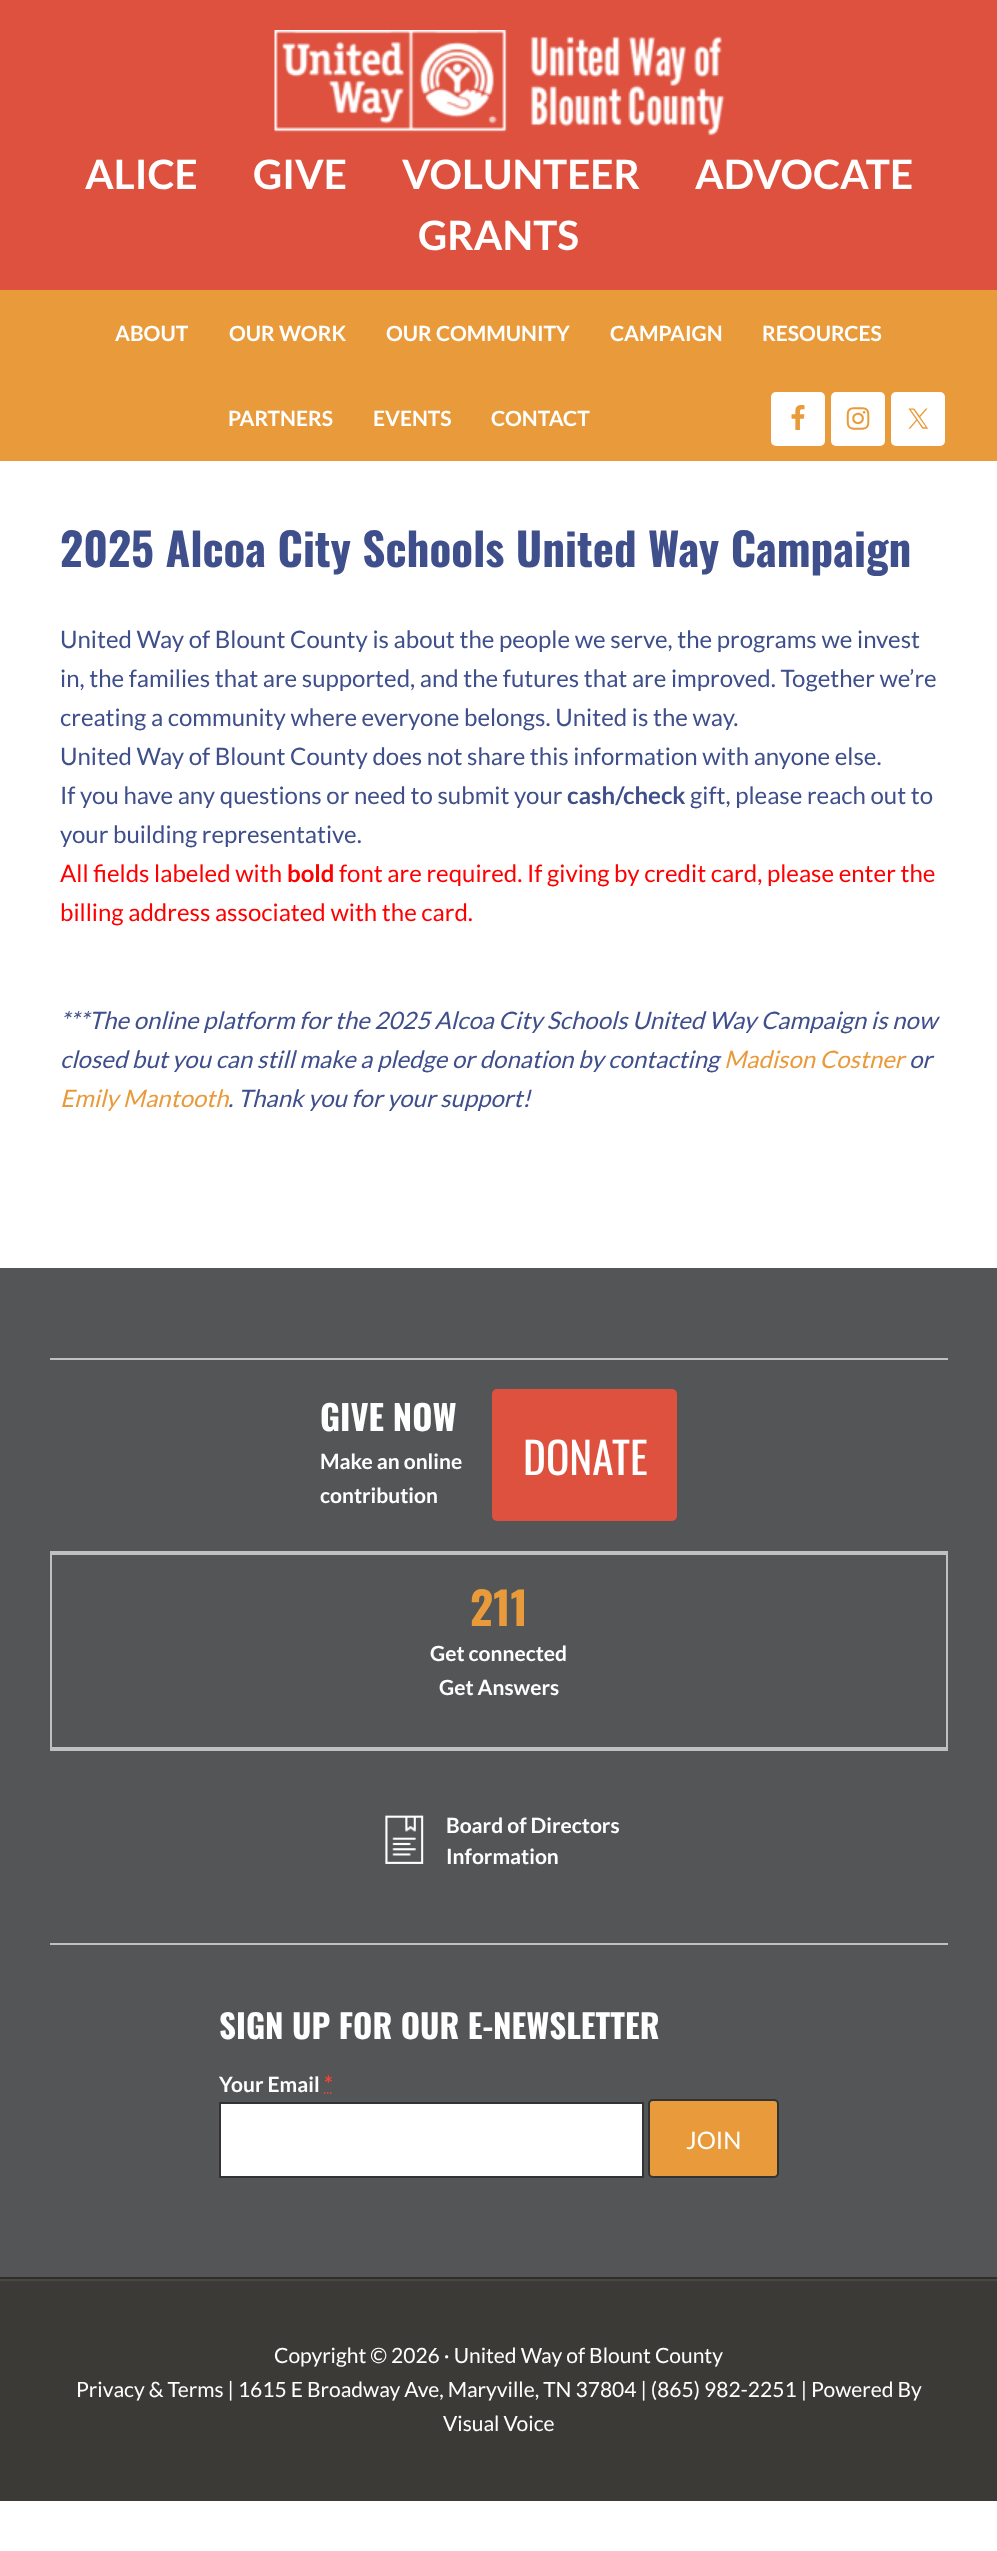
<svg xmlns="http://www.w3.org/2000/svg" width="997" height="2551">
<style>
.a{font:bold 40.5px Lato;fill:#fff}
.b{font:bold 21px Lato;fill:#fff}
.c{font:bold 45px Oswald;fill:#3f4f8c}
.d{font:24px Lato;fill:#3f4f8c}
.e{font:bold 24px Lato;fill:#3f4f8c}
.f{font:24px Lato;fill:#f00}
.g{font:bold 24px Lato;fill:#f00}
.h{font:italic 24px Lato;fill:#3f4f8c}
.i{font:italic 24px Lato;fill:#e99b3b}
.j{font:bold 34.5px Oswald;fill:#fff}
.k{font:43.5px Oswald;fill:#fff}
.l{font:bold 45px Oswald;fill:#e99b3b}
.m{font:bold 33px Oswald;fill:#fff}
.n{font:bold 22px Lato;fill:#ff4136}
.o{font:24px Lato;fill:#fff}
.p{font:21px Lato;fill:#fff}
</style>
<rect width="100%" height="100%" fill="#fff"/>
<path fill="#de513f" d="M0 0h997v290H0z"/>
<image href="1.png" x="274" y="30" width="451" height="106"/>
<path fill="#e99b3b" d="M0 290h997v171H0z"/>
<rect fill="#fff" x="771" y="392" width="54" height="54" rx="5"/>
<image href="2.png" x="791" y="405" width="14" height="25"/>
<rect fill="#fff" x="831" y="392" width="54" height="54" rx="5"/>
<image href="3.png" x="846" y="407" width="24" height="23"/>
<rect fill="#fff" x="891" y="392" width="54" height="54" rx="5"/>
<image href="4.png" x="908" y="408" width="21" height="21"/>
<path fill="#545556" d="M0 1268h997v1009H0z"/>
<path fill="#c0c0c0" d="M50 1358h898v2H50z"/>
<path fill="#c0c0c0" d="M50 1551h898v2H50z"/>
<rect fill="#de513f" x="492" y="1389" width="185" height="132" rx="5"/>
<path fill="none" stroke="#c0c0c0" stroke-width="2" d="M51 1554h896v194H51z"/>
<path fill="#c0c0c0" d="M50 1749h898v2H50z"/>
<path fill="#c0c0c0" d="M50 1943h898v2H50z"/>
<image href="5.png" x="385" y="1815" width="39" height="49"/>
<path fill="none" stroke="#ff4136" stroke-width="1.5" d="M324 2093h1.5m1.5 0h1.5m1.5 0h1.5"/>
<path fill="#fff" stroke="#333" stroke-width="2" d="M220 2103h423v74H220z"/>
<rect fill="#e99b3b" stroke="#333" stroke-width="2" x="649" y="2100" width="129" height="77" rx="4"/>
<path fill="#3c3a36" d="M0 2281h997v220H0z"/>
<path fill="#4a4844" d="M0 2279h997v2H0z"/>
<path fill="#302e2b" d="M0 2277h997v2H0z"/>
<text class="a" x="85" y="189">ALICE</text>
<text class="a" x="253" y="189">GIVE</text>
<text class="a" x="402" y="189">VOLUNTEER</text>
<text class="a" x="695" y="189">ADVOCATE</text>
<text class="a" x="418" y="250">GRANTS</text>
<text class="b" x="115" y="341">ABOUT</text>
<text class="b" x="229" y="341">OUR WORK</text>
<text class="b" x="386" y="341">OUR COMMUNITY</text>
<text class="b" x="610" y="341">CAMPAIGN</text>
<text class="b" x="762" y="341">RESOURCES</text>
<text class="b" x="228" y="426">PARTNERS</text>
<text class="b" x="373" y="426">EVENTS</text>
<text class="b" x="491" y="426">CONTACT</text>
<text class="c" x="60" y="567">2025 Alcoa City Schools United Way Campaign</text>
<text class="d" x="60" y="648">United Way of Blount County is about the people we serve, the programs we invest</text>
<text class="d" x="60" y="687">in, the families that are supported, and the futures that are improved. Together we’re</text>
<text class="d" x="60" y="726">creating a community where everyone belongs. United is the way.</text>
<text class="d" x="60" y="765">United Way of Blount County does not share this information with anyone else.</text>
<text class="d" x="60" y="804">If you have any questions or need to submit your</text>
<text class="e" x="567" y="804">cash/check</text>
<text class="d" x="690" y="804">gift, please reach out to</text>
<text class="d" x="60" y="843">your building representative.</text>
<text class="f" x="60" y="882">All fields labeled with</text>
<text class="g" x="287" y="882">bold</text>
<text class="f" x="339" y="882">font are required. If giving by credit card, please enter the</text>
<text class="f" x="60" y="921">billing address associated with the card.</text>
<text class="h" x="60" y="1029">***The online platform for the 2025 Alcoa City Schools United Way Campaign is now</text>
<text class="h" x="60" y="1068">closed but you can still make a pledge or donation by contacting</text>
<text class="i" x="724" y="1068">Madison Costner</text>
<text class="h" x="909" y="1068">or</text>
<text class="i" x="60" y="1107">Emily Mantooth</text>
<text class="h" x="228" y="1107">. Thank you for your support!</text>
<text class="j" x="320" y="1431">GIVE NOW</text>
<text class="b" x="320" y="1469">Make an online</text>
<text class="b" x="320" y="1503">contribution</text>
<text class="k" x="523" y="1475">DONATE</text>
<text class="l" x="470" y="1626">211</text>
<text class="b" x="430" y="1661">Get connected</text>
<text class="b" x="439" y="1695">Get Answers</text>
<text class="b" x="446" y="1833">Board of Directors</text>
<text class="b" x="446" y="1864">Information</text>
<text class="m" x="219" y="2039">SIGN UP FOR OUR E-NEWSLETTER</text>
<text class="b" x="219" y="2092">Your Email</text>
<text class="n" x="324" y="2092">*</text>
<text class="o" x="686" y="2149">JOIN</text>
<text class="p" x="274" y="2363">Copyright © 2026 · United Way of Blount County</text>
<text class="p" x="76" y="2397">Privacy &amp; Terms | 1615 E Broadway Ave, Maryville, TN 37804 | (865) 982-2251 | Powered By</text>
<text class="p" x="443" y="2431">Visual Voice</text>
</svg>
